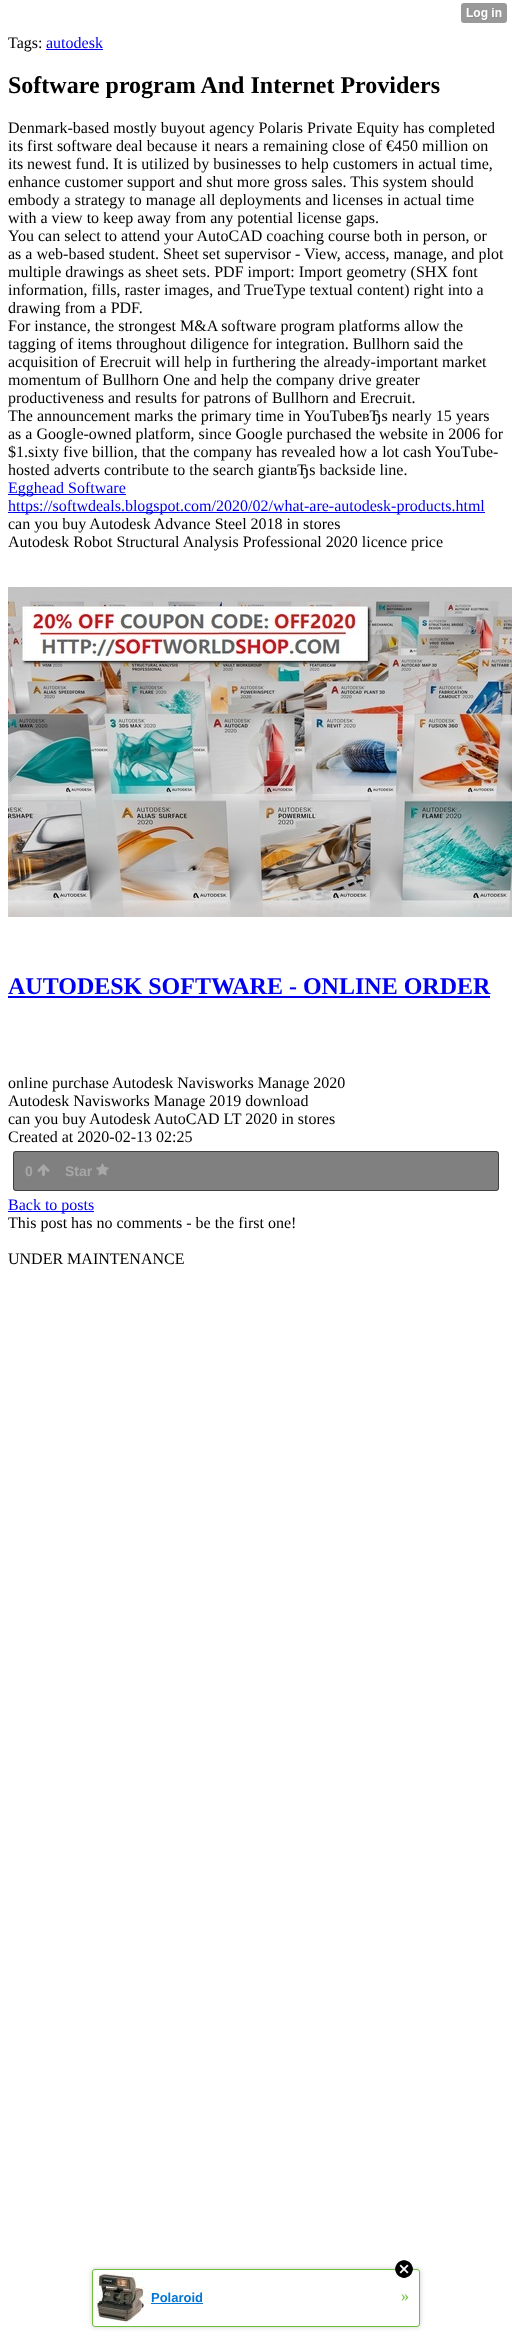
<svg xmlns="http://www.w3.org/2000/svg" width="512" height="2338">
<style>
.a{font:16px Liberation Serif;fill:#000}
.b{font:16px Liberation Serif;fill:#00e}
.c{font:bold 24px Liberation Serif;fill:#000}
.d{font:bold 24px Liberation Serif;fill:#00e}
.e{font:bold 14px Liberation Sans;fill:#a7a7a7}
.f{font:bold 13px Liberation Sans;fill:#0274d4}
.g{font:16px Liberation Serif;fill:#6bc135}
</style>
<rect width="100%" height="100%" fill="#fff"/>
<image href="1.png" x="461" y="3" width="46" height="20"/>
<path fill="#00e" d="M46 49h57v1H46z"/>
<path fill="#00e" d="M8 494h118v1H8z"/>
<path fill="#00e" d="M8 512h477v1H8z"/>
<image href="2.png" x="8" y="587" width="504" height="330"/>
<path fill="#00e" d="M8 996h482v2H8z"/>
<rect fill="#808080" x="13" y="1151" width="486" height="40" rx="3"/>
<rect fill="none" stroke="#00000080" x="13.5" y="1151.5" width="485" height="39" rx="2.5"/>
<image href="3.png" x="37" y="1164" width="13" height="12"/>
<image href="4.png" x="96" y="1163" width="13" height="13"/>
<path fill="#00e" d="M8 1211h86v1H8z"/>
<rect fill="#00000033" filter="blur(2.5px)" x="92" y="2269" width="328" height="58" rx="3"/>
<rect fill="#fff" stroke="#6bc135" x="92.5" y="2269.5" width="327" height="57" rx="2.5"/>
<image href="5.png" x="395" y="2260" width="18" height="18"/>
<image href="6.png" x="96" y="2273" width="48" height="50"/>
<path fill="#0274d4" d="M151 2303h52v1H151z"/>
<text class="a" x="8" y="48">Tags:</text>
<text class="b" x="46" y="48">autodesk</text>
<text class="c" x="8" y="93">Software program And Internet Providers</text>
<text class="a" x="8" y="133">Denmark-based mostly buyout agency Polaris Private Equity has completed</text>
<text class="a" x="8" y="151">its first software deal because it nears a remaining close of €450 million on</text>
<text class="a" x="8" y="169">its newest fund. It is utilized by businesses to help customers in actual time,</text>
<text class="a" x="8" y="187">enhance customer support and shut more gross sales. This system should</text>
<text class="a" x="8" y="205">embody a strategy to manage all deployments and licenses in actual time</text>
<text class="a" x="8" y="223">with a view to keep away from any potential license gaps.</text>
<text class="a" x="8" y="241">You can select to attend your AutoCAD coaching course both in person, or</text>
<text class="a" x="8" y="259">as a web-based student. Sheet set supervisor - View, access, manage, and plot</text>
<text class="a" x="8" y="277">multiple drawings as sheet sets. PDF import: Import geometry (SHX font</text>
<text class="a" x="8" y="295">information, fills, raster images, and TrueType textual content) right into a</text>
<text class="a" x="8" y="313">drawing from a PDF.</text>
<text class="a" x="8" y="331">For instance, the strongest M&amp;A software program platforms allow the</text>
<text class="a" x="8" y="349">tagging of items throughout diligence for integration. Bullhorn said the</text>
<text class="a" x="8" y="367">acquisition of Erecruit will help in furthering the already-important market</text>
<text class="a" x="8" y="385">momentum of Bullhorn One and help the company drive greater</text>
<text class="a" x="8" y="403">productiveness and results for patrons of Bullhorn and Erecruit.</text>
<text class="a" x="8" y="421">The announcement marks the primary time in YouTubeвЂs nearly 15 years</text>
<text class="a" x="8" y="439">as a Google-owned platform, since Google purchased the website in 2006 for</text>
<text class="a" x="8" y="457">$1.sixty five billion, that the company has revealed how a lot cash YouTube-</text>
<text class="a" x="8" y="475">hosted adverts contribute to the search giantвЂs backside line.</text>
<text class="b" x="8" y="493">Egghead Software</text>
<text class="b" x="8" y="511">https://softwdeals.blogspot.com/2020/02/what-are-autodesk-products.html</text>
<text class="a" x="8" y="529">can you buy Autodesk Advance Steel 2018 in stores</text>
<text class="a" x="8" y="547">Autodesk Robot Structural Analysis Professional 2020 licence price</text>
<text class="d" x="8" y="994">AUTODESK SOFTWARE - ONLINE ORDER</text>
<text class="a" x="8" y="1088">online purchase Autodesk Navisworks Manage 2020</text>
<text class="a" x="8" y="1106">Autodesk Navisworks Manage 2019 download</text>
<text class="a" x="8" y="1124">can you buy Autodesk AutoCAD LT 2020 in stores</text>
<text class="a" x="8" y="1142">Created at 2020-02-13 02:25</text>
<text class="e" x="25" y="1176">0</text>
<text class="e" x="65" y="1176">Star</text>
<text class="b" x="8" y="1210">Back to posts</text>
<text class="a" x="8" y="1228">This post has no comments - be the first one!</text>
<text class="a" x="8" y="1264">UNDER MAINTENANCE</text>
<text class="f" x="151" y="2302">Polaroid</text>
<text class="g" x="401" y="2301">»</text>
</svg>
